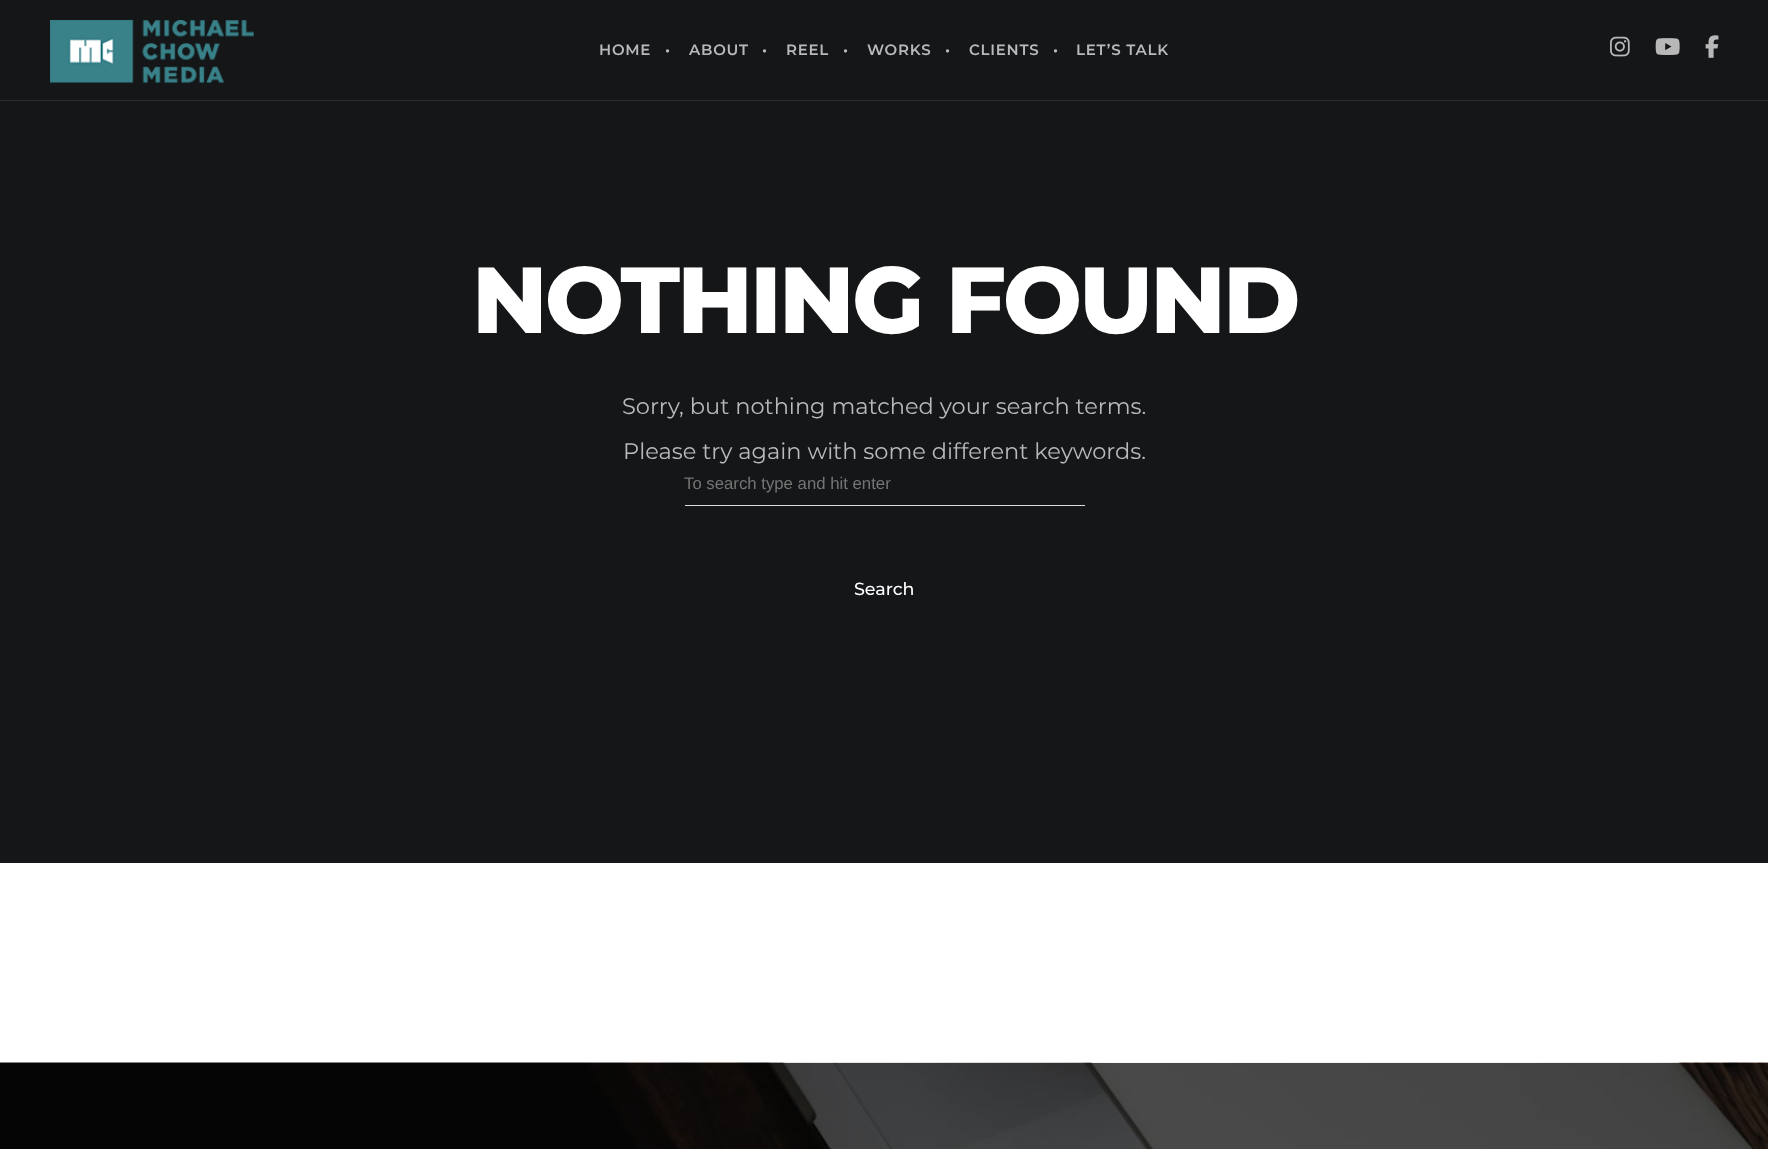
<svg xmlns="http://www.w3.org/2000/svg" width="1768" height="1149">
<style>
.a{font:600 15px Montserrat;letter-spacing:0.75px;fill:#b9b9ba}
.b{font:800 93.75px Montserrat;letter-spacing:-2.75px;fill:#fff}
.c{font:22.5px Montserrat;fill:#b9b9ba}
.d{font:16.75px Liberation Sans;fill:#757575}
.e{font:500 17.5px Montserrat;fill:#fff}
</style>
<rect width="100%" height="100%" fill="#fff"/>
<path fill="#141618" d="M0 0h1768v863H0z"/>
<path fill="#2c2d2f" d="M0 100h1768v1H0z"/>
<image href="1.png" x="50" y="20" width="204" height="64"/>
<image href="2.png" x="1610" y="36" width="20" height="21"/>
<image href="3.png" x="1655" y="38" width="25" height="17"/>
<image href="4.png" x="1705" y="35" width="14" height="23"/>
<path fill="#ddd" d="M685 505h400v1H685z"/>
<image href="5.png" x="0" y="1062" width="1768" height="87"/>
<text class="a" x="599" y="55">HOME</text>
<text class="a" x="665" y="55">•</text>
<text class="a" x="689" y="55">ABOUT</text>
<text class="a" x="762" y="55">•</text>
<text class="a" x="786" y="55">REEL</text>
<text class="a" x="843" y="55">•</text>
<text class="a" x="867" y="55">WORKS</text>
<text class="a" x="945" y="55">•</text>
<text class="a" x="969" y="55">CLIENTS</text>
<text class="a" x="1053" y="55">•</text>
<text class="a" x="1076" y="55">LET’S TALK</text>
<text class="b" x="472" y="333">NOTHING FOUND</text>
<text class="c" x="622" y="414">Sorry, but nothing matched your search terms.</text>
<text class="c" x="623" y="459">Please try again with some different keywords.</text>
<text class="d" x="684" y="489">To search type and hit enter</text>
<text class="e" x="854" y="595">Search</text>
</svg>
